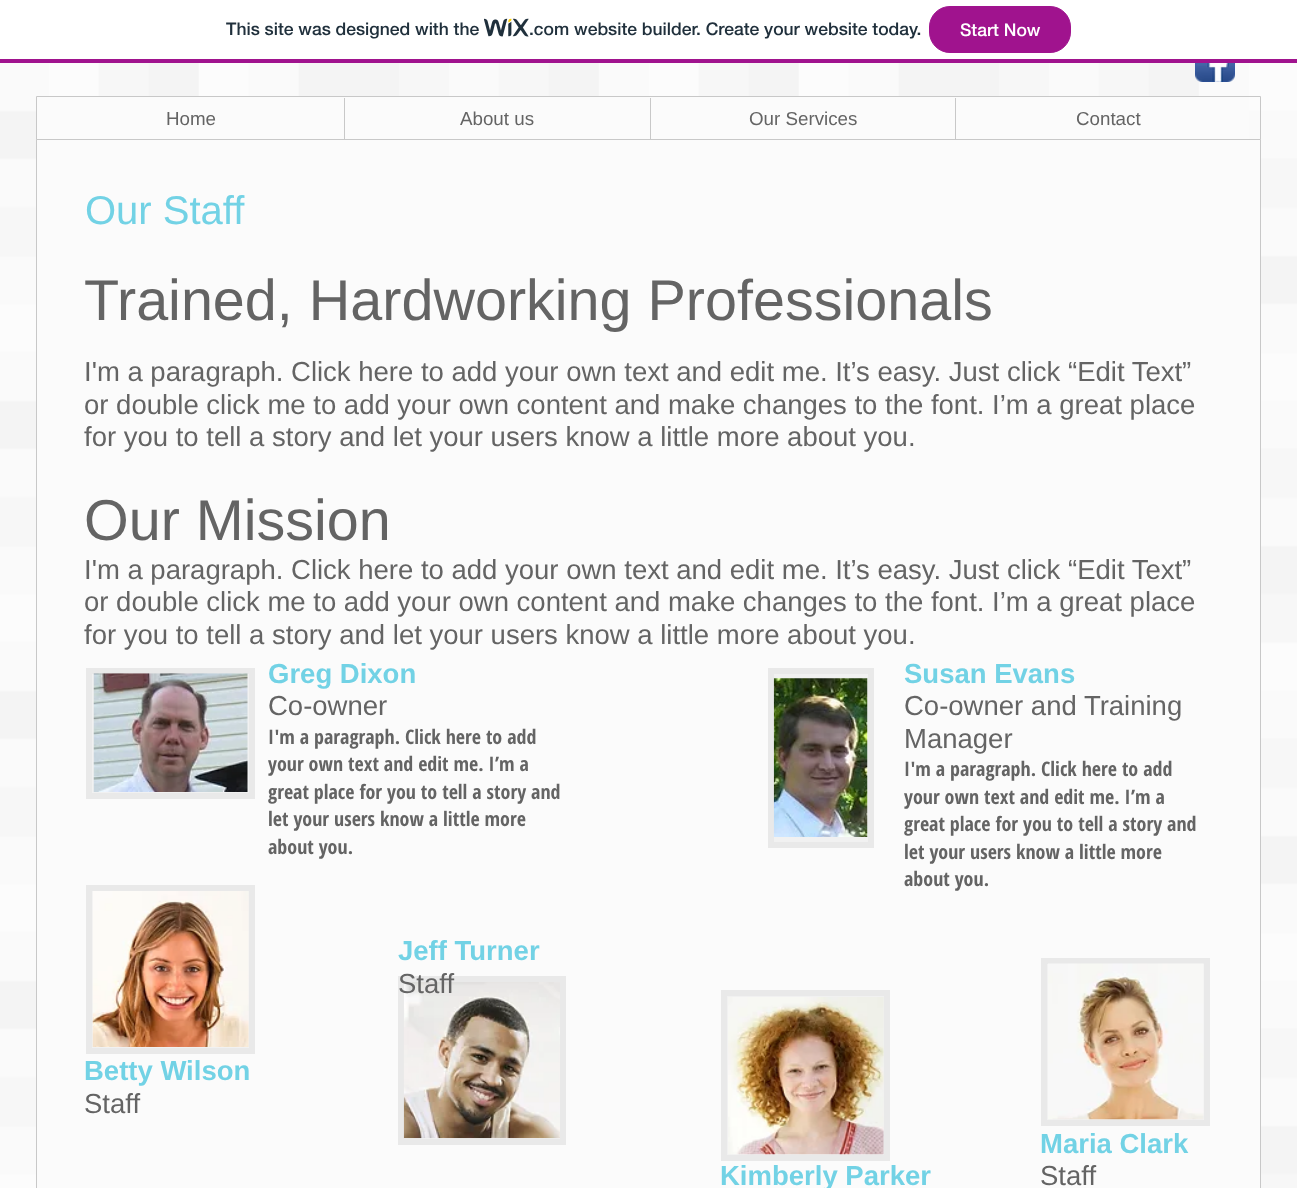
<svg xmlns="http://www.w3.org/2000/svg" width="1297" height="1188">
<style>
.a{font:500 17.5px 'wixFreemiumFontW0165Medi';fill:#20303c}
.b{font:500 17.5px 'wixFreemiumFontW0165Medi';fill:#fff}
.c{font:18.75px Liberation Sans;fill:#646464}
.d{font:40px Liberation Sans;fill:#72d2e5}
.e{font:57.5px Liberation Sans;fill:#646464}
.f{font:27.5px Liberation Sans;fill:#646464}
.g{font:bold 27.5px Liberation Sans;fill:#72d2e5}
.h{font:bold 20px Open Sans Condensed;fill:#646464}
</style>
<rect width="100%" height="100%" fill="#fbfbfb"/>
<path fill="#fff" d="M0 0h1297v59H0z"/>
<path fill="#a0138e" d="M0 59h1297v4H0z"/>
<image href="1.png" x="484" y="18" width="45" height="19"/>
<rect fill="#a0138e" stroke="#a0138e" x="929.5" y="6.5" width="141" height="46" rx="20.5"/>
<image href="2.png" x="0" y="63" width="1297" height="1125"/>
<image href="3.png" x="1195" y="63" width="40" height="19"/>
<path fill="#fbfbfb" d="M37 97h1212v42H37z"/>
<path fill="none" stroke="#c8c8c8" d="M36.5 96.5h1224v43H36.5z"/>
<path fill="#c8c8c8" d="M344 98h1v41H344z"/>
<path fill="#c8c8c8" d="M650 98h1v41H650z"/>
<path fill="#c8c8c8" d="M955 98h1v41H955z"/>
<path fill="#fbfbfb" stroke="#c8c8c8" d="M36.5 139.5h1224v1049H36.5z"/>
<path fill="#f1f1f1" stroke="#e9e9e9" stroke-width="6" d="M89 671h163v125H89z"/>
<image href="4.png" x="93" y="673" width="155" height="119"/>
<path fill="#f1f1f1" stroke="#e9e9e9" stroke-width="6" d="M771 671h100v174H771z"/>
<image href="5.png" x="773" y="678" width="95" height="159"/>
<path fill="#f1f1f1" stroke="#e9e9e9" stroke-width="6" d="M89 888h163v163H89z"/>
<image href="6.png" x="92" y="891" width="157" height="156"/>
<path fill="#f1f1f1" stroke="#e9e9e9" stroke-width="6" d="M1044 961h163v162H1044z"/>
<image href="7.png" x="1048" y="963" width="156" height="157"/>
<path fill="#f1f1f1" d="M404 1138h156v1H404z"/>
<path fill="none" stroke="#e9e9e9" stroke-width="6" d="M401 979h162v163H401z"/>
<image href="8.png" x="403" y="982" width="157" height="157"/>
<path fill="#f1f1f1" stroke="#e9e9e9" stroke-width="6" d="M724 993h163v165H724z"/>
<image href="9.png" x="728" y="997" width="156" height="158"/>
<text class="a" x="226" y="35">This site was designed with the</text>
<text class="a" x="529" y="35">.com website builder. Create your website today.</text>
<text class="b" x="960" y="36">Start Now</text>
<text class="c" x="166" y="125">Home</text>
<text class="c" x="460" y="125">About us</text>
<text class="c" x="749" y="125">Our Services</text>
<text class="c" x="1076" y="125">Contact</text>
<text class="d" x="85" y="224">Our Staff</text>
<text class="e" x="84" y="320">Trained, Hardworking Professionals</text>
<text class="f" x="84" y="381">I'm a paragraph. Click here to add your own text and edit me. It’s easy. Just click “Edit Text”</text>
<text class="f" x="84" y="414">or double click me to add your own content and make changes to the font. I’m a great place</text>
<text class="f" x="84" y="446">for you to tell a story and let your users know a little more about you.</text>
<text class="e" x="84" y="540">Our Mission</text>
<text class="f" x="84" y="579">I'm a paragraph. Click here to add your own text and edit me. It’s easy. Just click “Edit Text”</text>
<text class="f" x="84" y="611">or double click me to add your own content and make changes to the font. I’m a great place</text>
<text class="f" x="84" y="644">for you to tell a story and let your users know a little more about you.</text>
<text class="g" x="268" y="683">Greg Dixon</text>
<text class="f" x="268" y="715">Co-owner</text>
<text class="h" x="268" y="744">I'm a paragraph. Click here to add</text>
<text class="h" x="268" y="771">your own text and edit me. I’m a</text>
<text class="h" x="268" y="799">great place for you to tell a story and</text>
<text class="h" x="268" y="826">let your users know a little more</text>
<text class="h" x="268" y="854">about you.</text>
<text class="g" x="904" y="683">Susan Evans</text>
<text class="f" x="904" y="715">Co-owner and Training</text>
<text class="f" x="904" y="748">Manager</text>
<text class="h" x="904" y="776">I'm a paragraph. Click here to add</text>
<text class="h" x="904" y="804">your own text and edit me. I’m a</text>
<text class="h" x="904" y="831">great place for you to tell a story and</text>
<text class="h" x="904" y="859">let your users know a little more</text>
<text class="h" x="904" y="886">about you.</text>
<text class="g" x="398" y="960">Jeff Turner</text>
<text class="f" x="398" y="993">Staff</text>
<text class="g" x="84" y="1080">Betty Wilson</text>
<text class="f" x="84" y="1113">Staff</text>
<text class="g" x="720" y="1185">Kimberly Parker</text>
<text class="g" x="1040" y="1153">Maria Clark</text>
<text class="f" x="1040" y="1185">Staff</text>
</svg>
